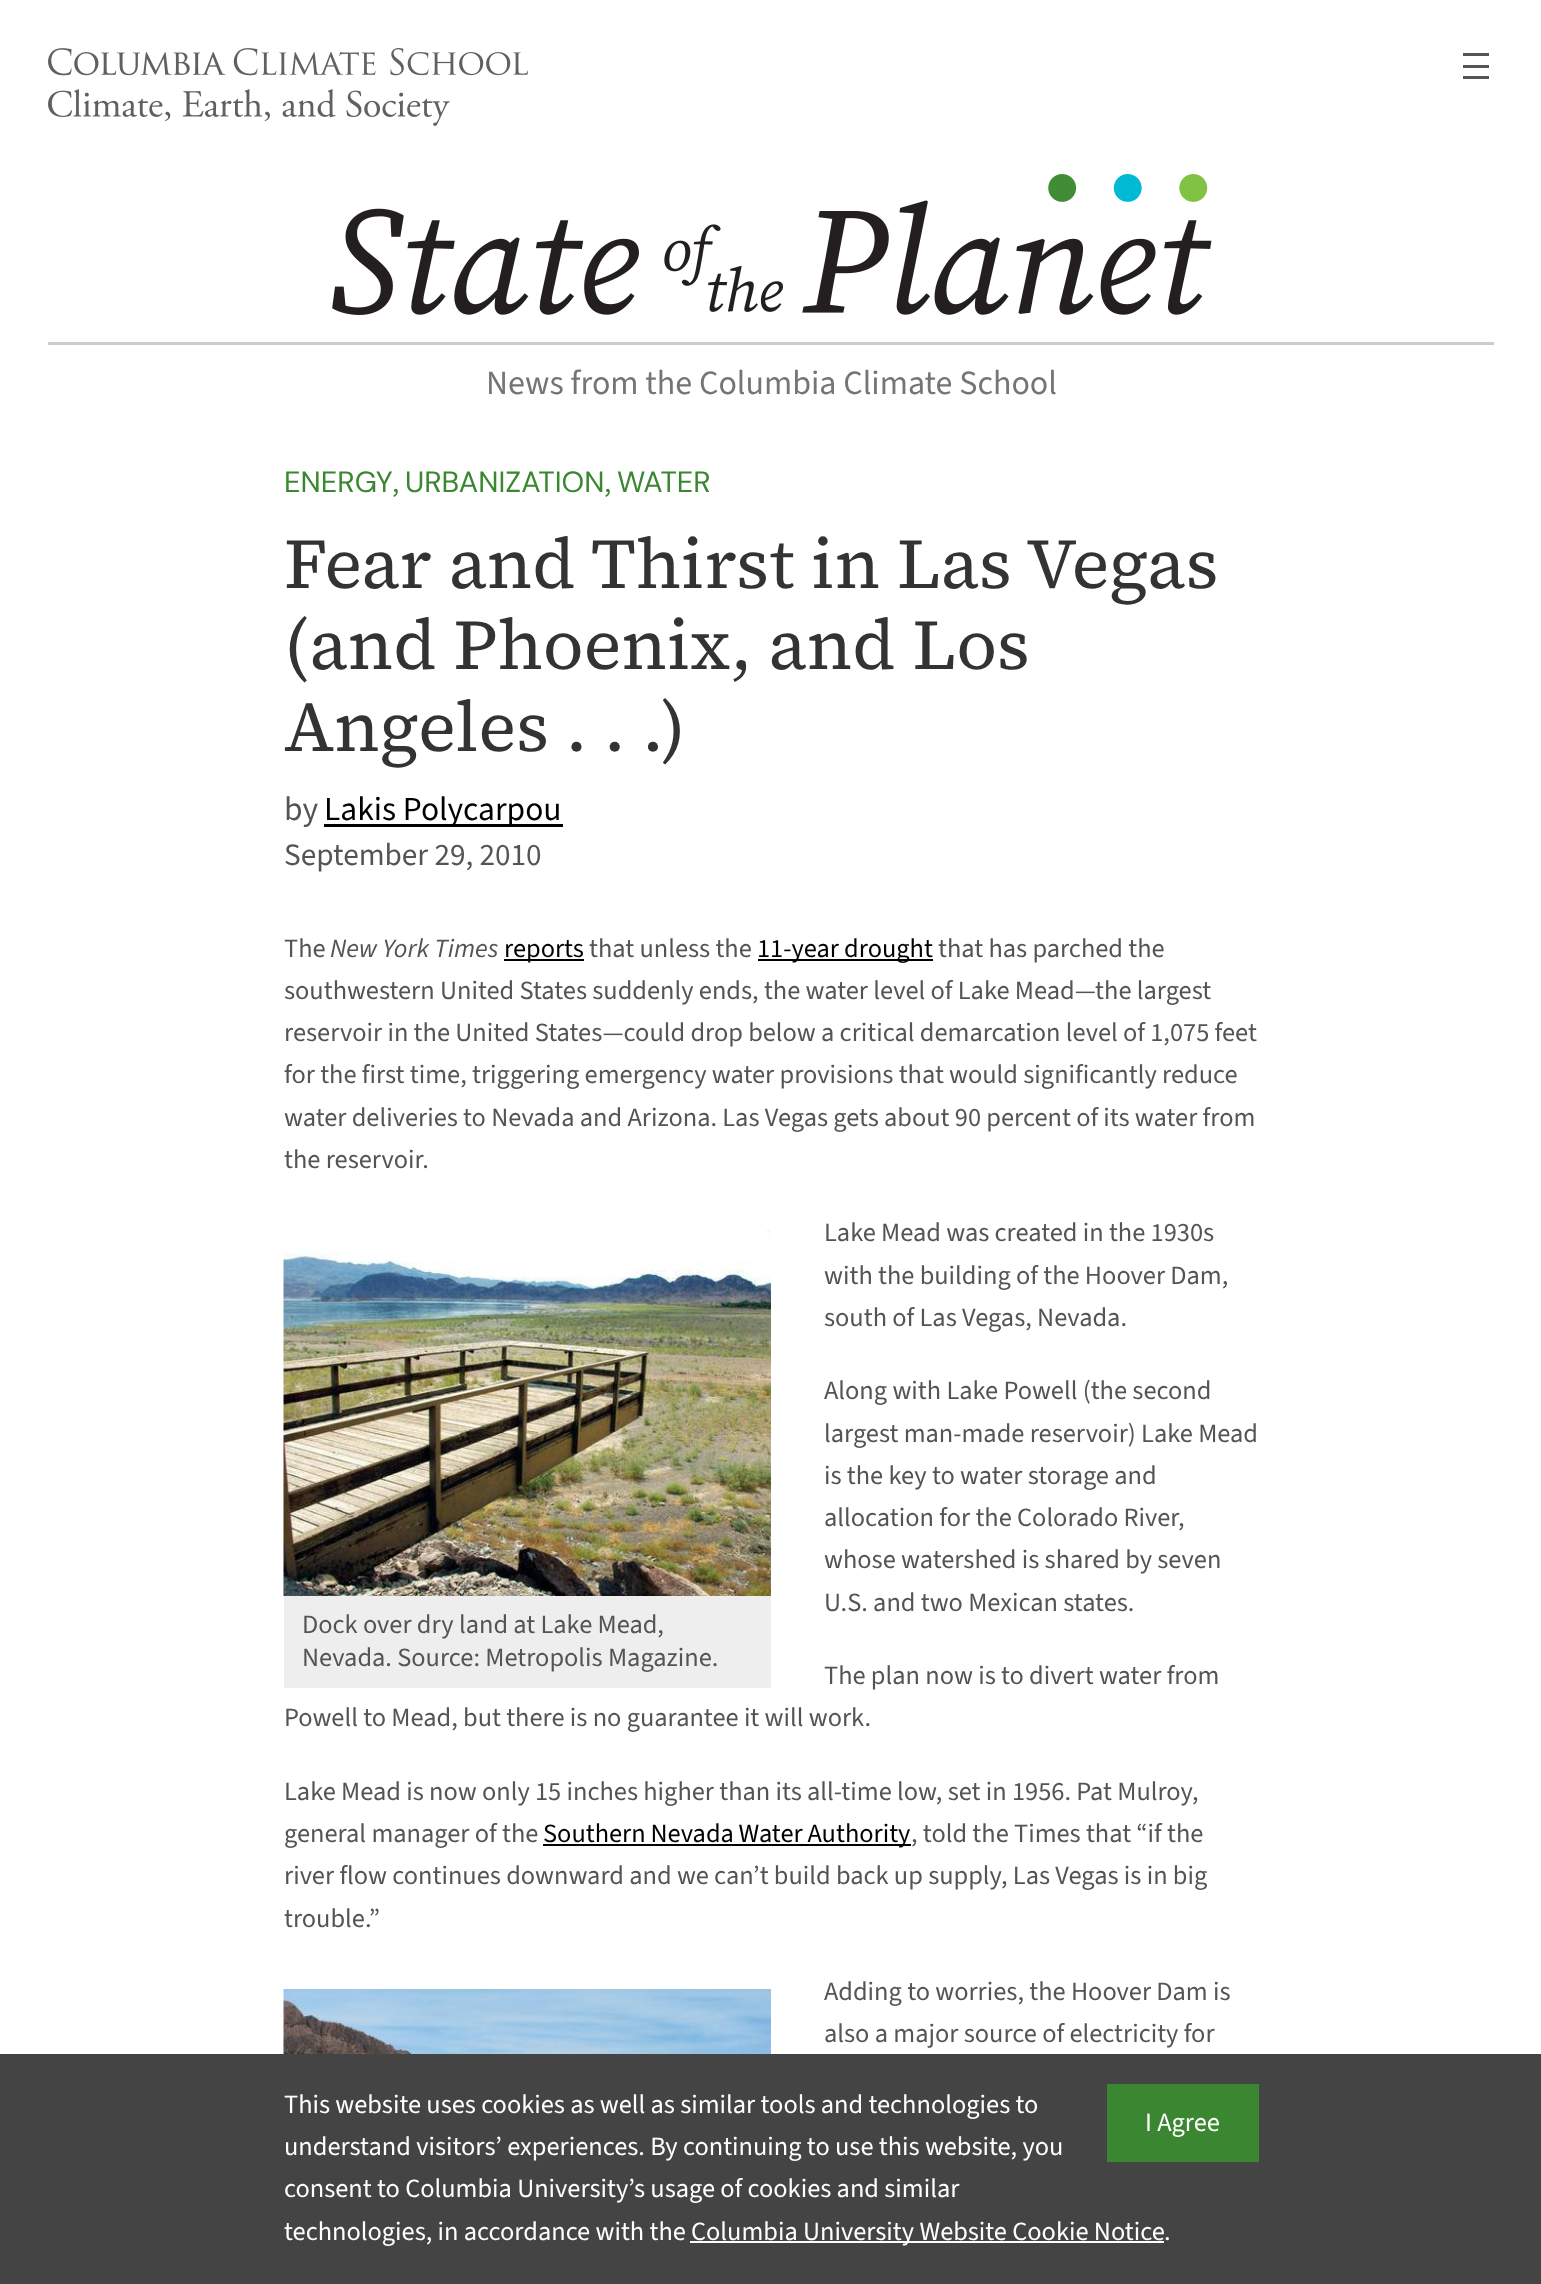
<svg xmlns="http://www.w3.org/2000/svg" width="1541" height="2284">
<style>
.a{font:34px 'Source Sans 3';fill:#757575}
.b{font:29.25px DM Sans;fill:#3b8631}
.c{font:29.25px 'Source Sans 3';fill:#3b8631}
.d{font:70.75px 'Source Serif 4';fill:#333}
.e{font:33.5px 'Source Sans 3';fill:#545454}
.f{font:33.5px 'Source Sans 3';fill:#000}
.g{font:31.25px 'Source Sans 3';fill:#545454}
.h{font:26.4px 'Source Sans 3';fill:#545454}
.i{font:italic 26.4px 'Source Sans 3';fill:#545454}
.j{font:26.4px 'Source Sans 3';fill:#000}
.k{font:26.4px 'Source Sans 3';fill:#fff}
</style>
<rect width="100%" height="100%" fill="#fff"/>
<image href="1.png" x="48" y="48" width="480" height="78"/>
<path fill="#545454" d="M1463 53h26v3H1463z"/>
<path fill="#545454" d="M1463 65h26v3H1463z"/>
<path fill="#545454" d="M1463 76h26v3H1463z"/>
<image href="2.png" x="332" y="174" width="880" height="141"/>
<path fill="#ccc" d="M48 342h1446v3H48z"/>
<path fill="#000" d="M324 824h239v3H324z"/>
<path fill="#000" d="M504 959h80v2H504z"/>
<path fill="#000" d="M758 959h175v2H758z"/>
<path fill="#eee" d="M284 1596h487v92H284z"/>
<image href="3.png" x="283" y="1230" width="488" height="366"/>
<path fill="#000" d="M543 1844h368v2H543z"/>
<image href="4.png" x="283" y="1989" width="488" height="65"/>
<path fill="#444" d="M0 2054h1541v230H0z"/>
<path fill="#3b8631" d="M1107 2084h152v78H1107z"/>
<path fill="#fff" d="M690 2241h474v2H690z"/>
<text class="a" x="486" y="394">News from the Columbia Climate School</text>
<text class="b" x="284" y="492">ENERGY</text>
<text class="c" x="392" y="492">,</text>
<text class="b" x="405" y="492">URBANIZATION</text>
<text class="c" x="604" y="492">,</text>
<text class="b" x="617" y="492">WATER</text>
<text class="d" x="284" y="588">Fear and Thirst in Las Vegas</text>
<text class="d" x="284" y="669">(and Phoenix, and Los</text>
<text class="d" x="284" y="751">Angeles . . .)</text>
<text class="e" x="284" y="820">by</text>
<text class="f" x="324" y="820">Lakis Polycarpou</text>
<text class="g" x="284" y="865">September 29, 2010</text>
<text class="h" x="284" y="957">The</text>
<text class="i" x="330" y="957">New York Times</text>
<text class="j" x="504" y="957">reports</text>
<text class="h" x="589" y="957">that unless the</text>
<text class="j" x="757" y="957">11-year drought</text>
<text class="h" x="938" y="957">that has parched the</text>
<text class="h" x="284" y="999">southwestern United States suddenly ends, the water level of Lake Mead—the largest</text>
<text class="h" x="284" y="1041">reservoir in the United States—could drop below a critical demarcation level of 1,075 feet</text>
<text class="h" x="284" y="1083">for the first time, triggering emergency water provisions that would significantly reduce</text>
<text class="h" x="284" y="1126">water deliveries to Nevada and Arizona. Las Vegas gets about 90 percent of its water from</text>
<text class="h" x="284" y="1168">the reservoir.</text>
<text class="h" x="824" y="1241">Lake Mead was created in the 1930s</text>
<text class="h" x="824" y="1284">with the building of the Hoover Dam,</text>
<text class="h" x="824" y="1326">south of Las Vegas, Nevada.</text>
<text class="h" x="824" y="1399">Along with Lake Powell (the second</text>
<text class="h" x="824" y="1442">largest man-made reservoir) Lake Mead</text>
<text class="h" x="824" y="1484">is the key to water storage and</text>
<text class="h" x="824" y="1526">allocation for the Colorado River,</text>
<text class="h" x="824" y="1568">whose watershed is shared by seven</text>
<text class="h" x="824" y="1611">U.S. and two Mexican states.</text>
<text class="h" x="302" y="1633">Dock over dry land at Lake Mead,</text>
<text class="h" x="302" y="1666">Nevada. Source: Metropolis Magazine.</text>
<text class="h" x="824" y="1684">The plan now is to divert water from</text>
<text class="h" x="284" y="1726">Powell to Mead, but there is no guarantee it will work.</text>
<text class="h" x="284" y="1800">Lake Mead is now only 15 inches higher than its all-time low, set in 1956. Pat Mulroy,</text>
<text class="h" x="284" y="1842">general manager of the</text>
<text class="j" x="543" y="1842" word-spacing="-0.5">Southern Nevada Water Authority</text>
<text class="h" x="911" y="1842">, told the Times that “if the</text>
<text class="h" x="284" y="1884">river flow continues downward and we can’t build back up supply, Las Vegas is in big</text>
<text class="h" x="284" y="1927">trouble.”</text>
<text class="h" x="824" y="2000">Adding to worries, the Hoover Dam is</text>
<text class="h" x="824" y="2042">also a major source of electricity for</text>
<text class="k" x="284" y="2113">This website uses cookies as well as similar tools and technologies to</text>
<text class="k" x="1145" y="2131">I Agree</text>
<text class="k" x="284" y="2155">understand visitors’ experiences. By continuing to use this website, you</text>
<text class="k" x="284" y="2197">consent to Columbia University’s usage of cookies and similar</text>
<text class="k" x="284" y="2240">technologies, in accordance with the</text>
<text class="k" x="691" y="2240">Columbia University Website Cookie Notice</text>
<text class="k" x="1164" y="2240">.</text>
</svg>
